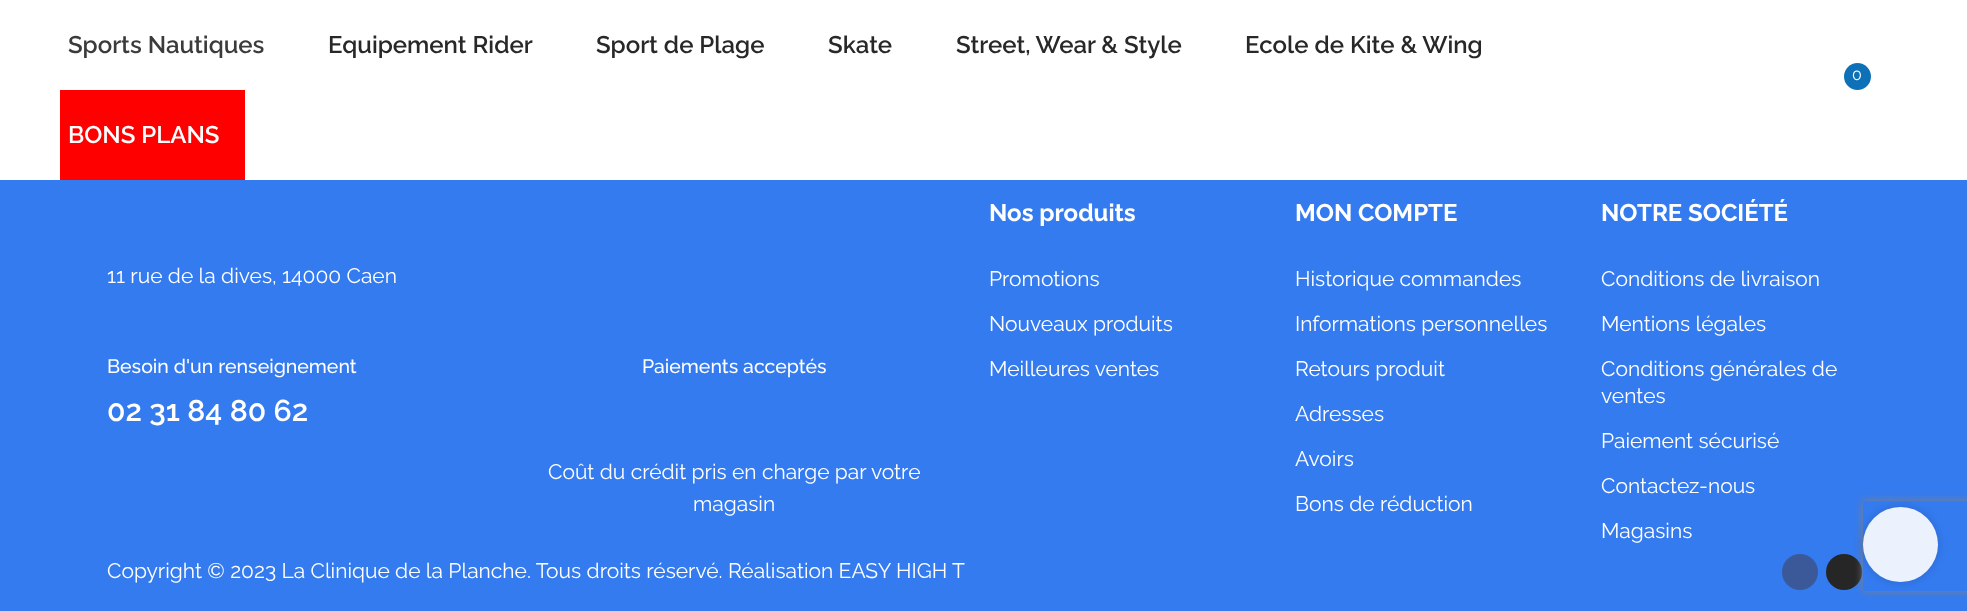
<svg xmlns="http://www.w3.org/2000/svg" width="1967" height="611">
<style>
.a{font:600 24px Raleway;fill:#3b3b3b}
.b{font:600 24px Raleway;fill:#282828}
.c{font:600 24px Raleway;fill:#fff}
.d{font:16px Raleway;fill:#fff}
.e{font:21px Raleway;fill:#fff}
.f{font:500 19.5px Raleway;fill:#fff}
.g{font:600 30px Raleway;fill:#fff}
.h{font:bold 24px Raleway;fill:#fff}
</style>
<defs>
<clipPath id="clip1"><path d="M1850 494h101v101h-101zm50.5 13c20.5 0 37.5 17 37.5 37.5c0 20.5-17 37.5-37.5 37.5c-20.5 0-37.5-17-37.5-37.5c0-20.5 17-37.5 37.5-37.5z" clip-rule="evenodd"/></clipPath>
<clipPath id="clip2"><path d="M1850 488h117v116h-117zm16 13h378c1.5 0 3 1.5 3 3v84c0 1.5-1.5 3-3 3h-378c-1.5 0-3-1.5-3-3v-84c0-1.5 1.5-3 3-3z" clip-rule="evenodd"/></clipPath>
</defs>
<rect width="100%" height="100%" fill="#347bf0"/>
<path fill="#fff" d="M0 0h1967v180H0z"/>
<path fill="#f00" d="M60 90h185v90H60z"/>
<circle fill="#0e71b8" cx="1857.5" cy="76.5" r="13.5"/>
<circle fill="#3b5998" cx="1800" cy="572" r="18"/>
<circle fill="#262626" cx="1844" cy="572" r="18"/>
<g clip-path="url(#clip1)">
<rect fill="#0000002b" filter="blur(4px)" x="1863" y="507" width="75" height="75" rx="37.5"/>
</g>
<circle fill="#ffffffe6" cx="1900.5" cy="544.5" r="37.5"/>
<g clip-path="url(#clip2)">
<rect fill="#808080" filter="blur(4px)" x="1863" y="501" width="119" height="90" rx="3"/>
</g>
<text class="a" x="68" y="53">Sports Nautiques</text>
<text class="b" x="328" y="53">Equipement Rider</text>
<text class="b" x="596" y="53">Sport de Plage</text>
<text class="b" x="828" y="53">Skate</text>
<text class="b" x="956" y="53">Street, Wear &amp; Style</text>
<text class="b" x="1245" y="53">Ecole de Kite &amp; Wing</text>
<text class="c" x="68" y="143">BONS PLANS</text>
<text class="d" x="1852" y="80">0</text>
<text class="e" x="107" y="283">11 rue de la dives, 14000 Caen</text>
<text class="f" x="107" y="373">Besoin d'un renseignement</text>
<text class="g" x="107" y="421">02 31 84 80 62</text>
<text class="f" x="642" y="373">Paiements acceptés</text>
<text class="e" x="548" y="479">Coût du crédit pris en charge par votre</text>
<text class="e" x="693" y="511">magasin</text>
<text class="h" x="989" y="221">Nos produits</text>
<text class="e" x="989" y="286">Promotions</text>
<text class="e" x="989" y="331">Nouveaux produits</text>
<text class="e" x="989" y="376">Meilleures ventes</text>
<text class="h" x="1295" y="221">MON COMPTE</text>
<text class="e" x="1295" y="286">Historique commandes</text>
<text class="e" x="1295" y="331">Informations personnelles</text>
<text class="e" x="1295" y="376">Retours produit</text>
<text class="e" x="1295" y="421">Adresses</text>
<text class="e" x="1295" y="466">Avoirs</text>
<text class="e" x="1295" y="511">Bons de réduction</text>
<text class="h" x="1601" y="221">NOTRE SOCIÉTÉ</text>
<text class="e" x="1601" y="286">Conditions de livraison</text>
<text class="e" x="1601" y="331">Mentions légales</text>
<text class="e" x="1601" y="376">Conditions générales de</text>
<text class="e" x="1601" y="403">ventes</text>
<text class="e" x="1601" y="448">Paiement sécurisé</text>
<text class="e" x="1601" y="493">Contactez-nous</text>
<text class="e" x="1601" y="538">Magasins</text>
<text class="e" x="107" y="578">Copyright © 2023 La Clinique de la Planche. Tous droits réservé. Réalisation EASY HIGH T</text>
</svg>
